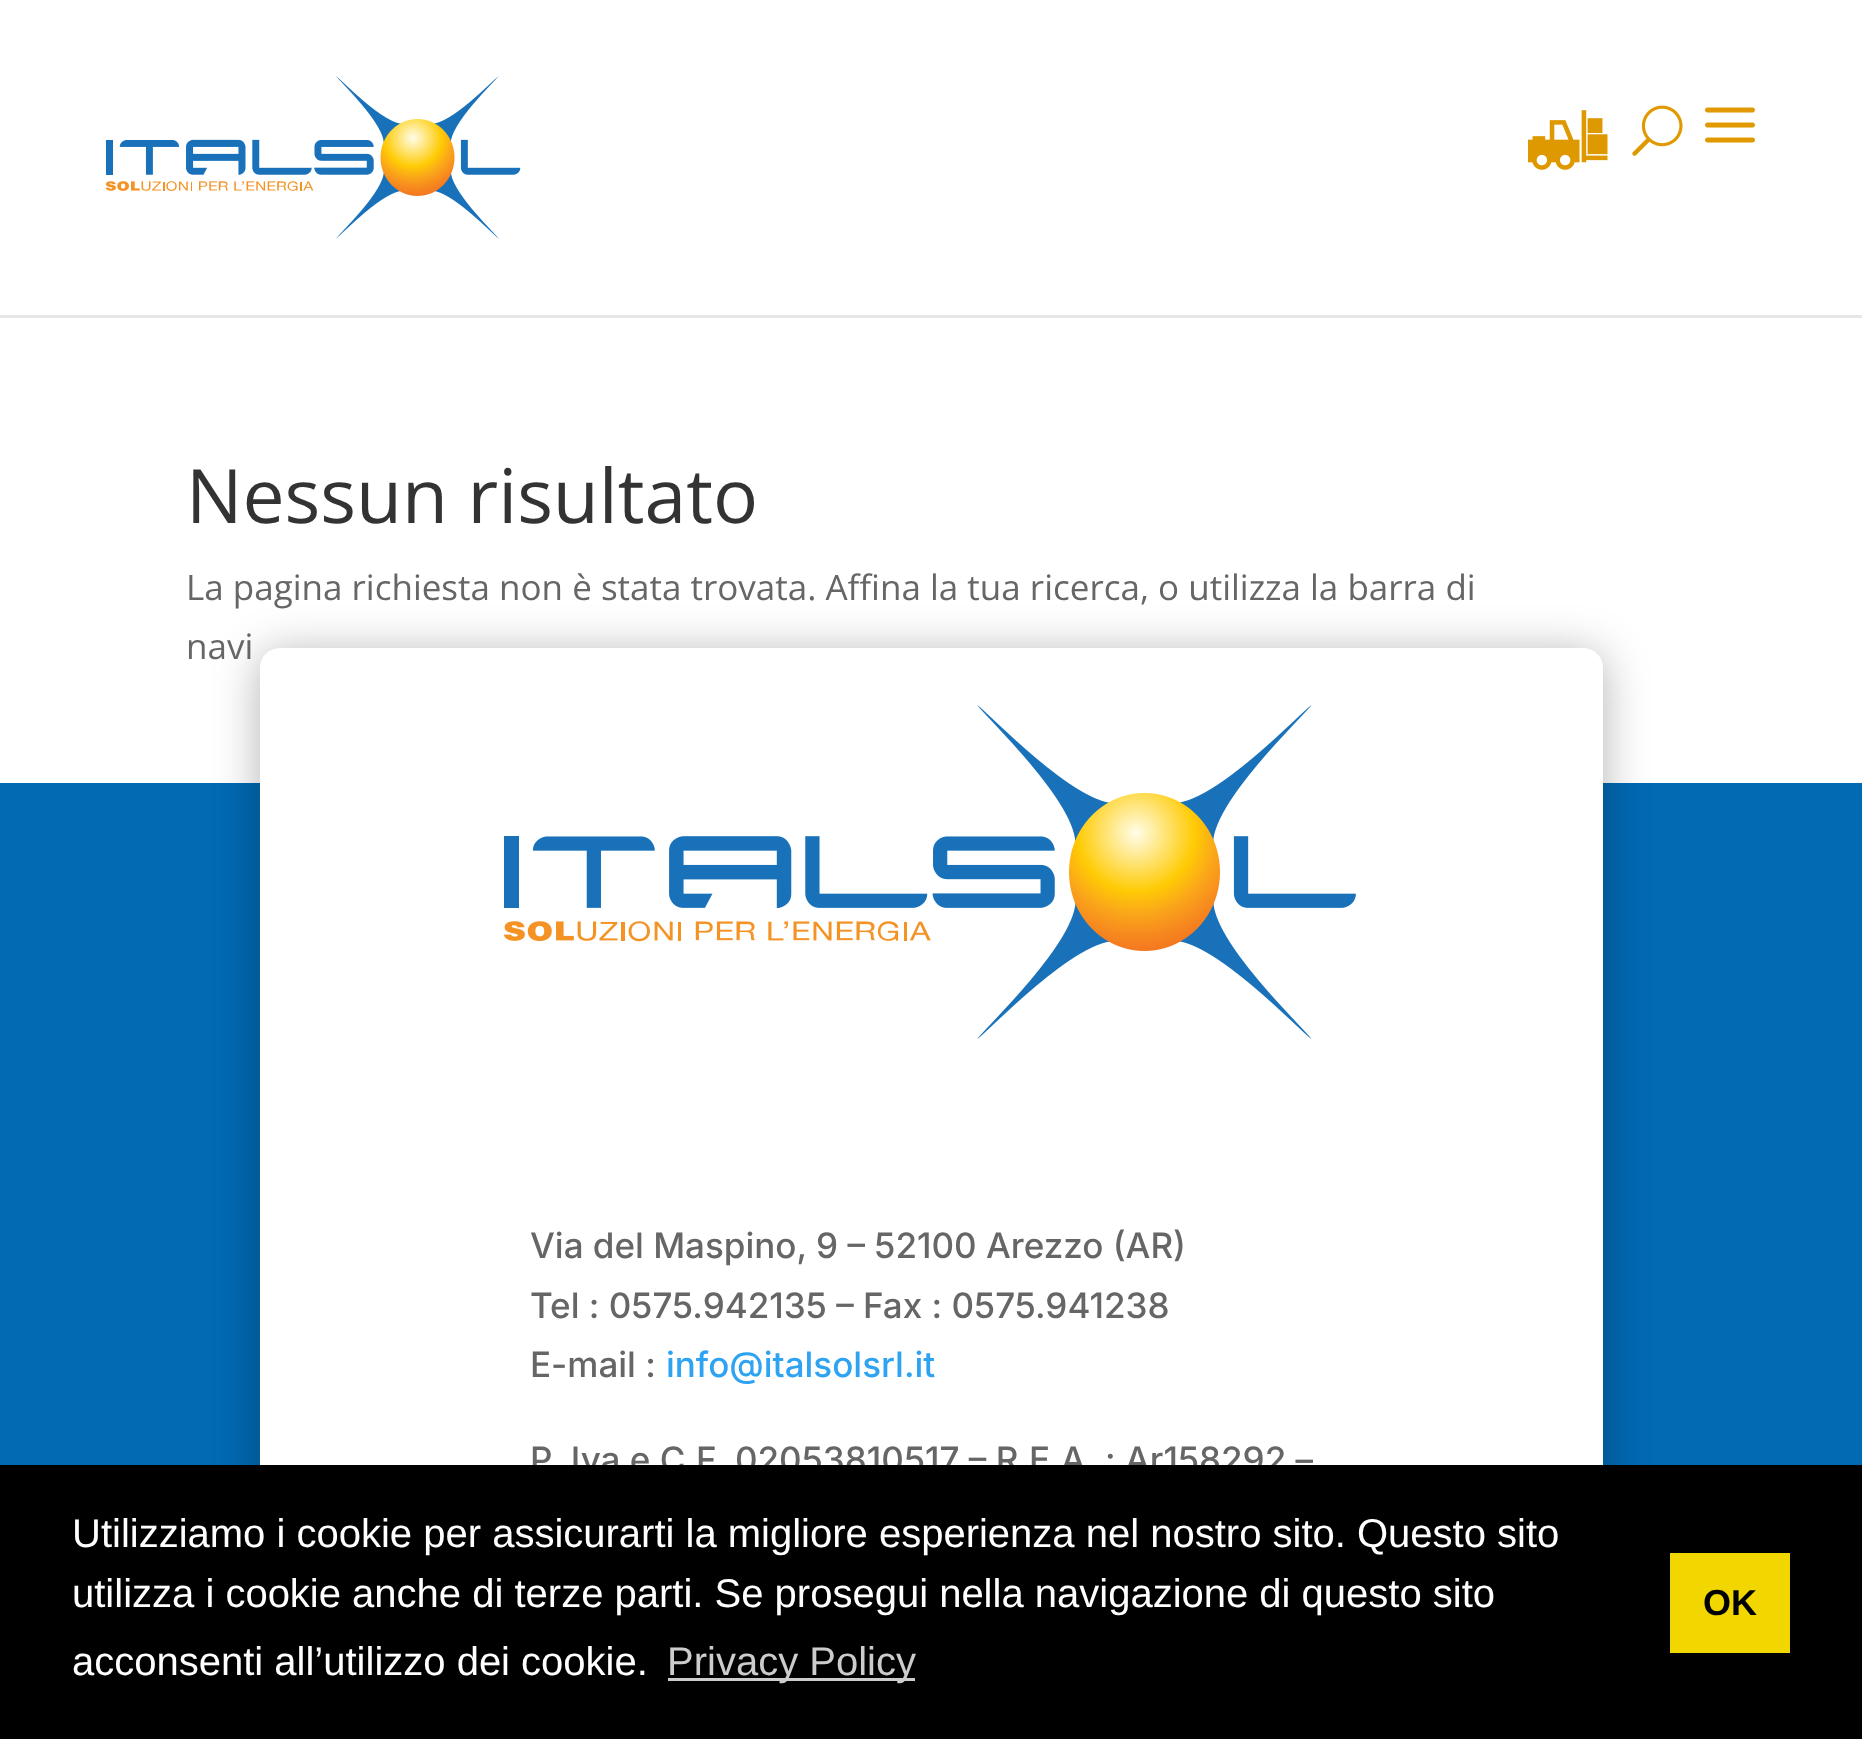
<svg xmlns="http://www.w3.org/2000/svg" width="1862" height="1739">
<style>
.a{font:75px Open Sans;fill:#333}
.b{font:35px Open Sans;fill:#666}
.c{font:500 35px Inter;fill:#666}
.d{font:500 35px Inter;fill:#2ea3f2}
.e{font:40px Liberation Sans;fill:#fff}
.f{font:40px Liberation Sans;fill:#ccc}
.g{font:bold 36px Liberation Sans;fill:#000}
</style>
<rect width="100%" height="100%" fill="#fff"/>
<path fill="#e6e6e6" d="M0 315v3h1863v-315h-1v312z"/>
<image href="1.png" x="105" y="76" width="416" height="163"/>
<image href="2.png" x="1528" y="110" width="80" height="60"/>
<image href="3.png" x="1632" y="105" width="51" height="51"/>
<image href="4.png" x="1705" y="107" width="50" height="36"/>
<path fill="#006ab3" d="M0 783h1862v682H0z"/>
<rect fill="#0000004d" filter="blur(22.5px)" x="260" y="653" width="1343" height="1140" rx="20"/>
<rect fill="#fff" x="260" y="648" width="1343" height="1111" rx="20"/>
<image href="5.png" x="504" y="705" width="852" height="335"/>
<text class="a" x="186" y="523">Nessun risultato</text>
<text class="b" x="186" y="600">La pagina richiesta non è stata trovata. Affina la tua ricerca, o utilizza la barra di</text>
<text class="b" x="186" y="659">navi</text>
<text class="c" x="530" y="1258">Via del Maspino, 9 – 52100 Arezzo (AR)</text>
<text class="c" x="530" y="1318">Tel : 0575.942135 – Fax : 0575.941238</text>
<text class="c" x="530" y="1377">E-mail :</text>
<text class="d" x="666" y="1377">info@italsolsrl.it</text>
<text class="c" x="530" y="1472">P. Iva e C.F. 02053810517 – R.E.A. : Ar158292 –</text>
<path fill="#000" d="M0 1465h1862v274H0z"/>
<text class="e" x="72" y="1547">Utilizziamo i cookie per assicurarti la migliore esperienza nel nostro sito. Questo sito</text>
<text class="e" x="72" y="1607">utilizza i cookie anche di terze parti. Se prosegui nella navigazione di questo sito</text>
<text class="e" x="72" y="1675">acconsenti all’utilizzo dei cookie.</text>
<path fill="#ccc" d="M668 1678h247v3H668z"/>
<text class="f" x="667" y="1675">Privacy Policy</text>
<path fill="#f1d600" d="M1670 1553h120v100H1670z"/>
<text class="g" x="1703" y="1615">OK</text>
</svg>
